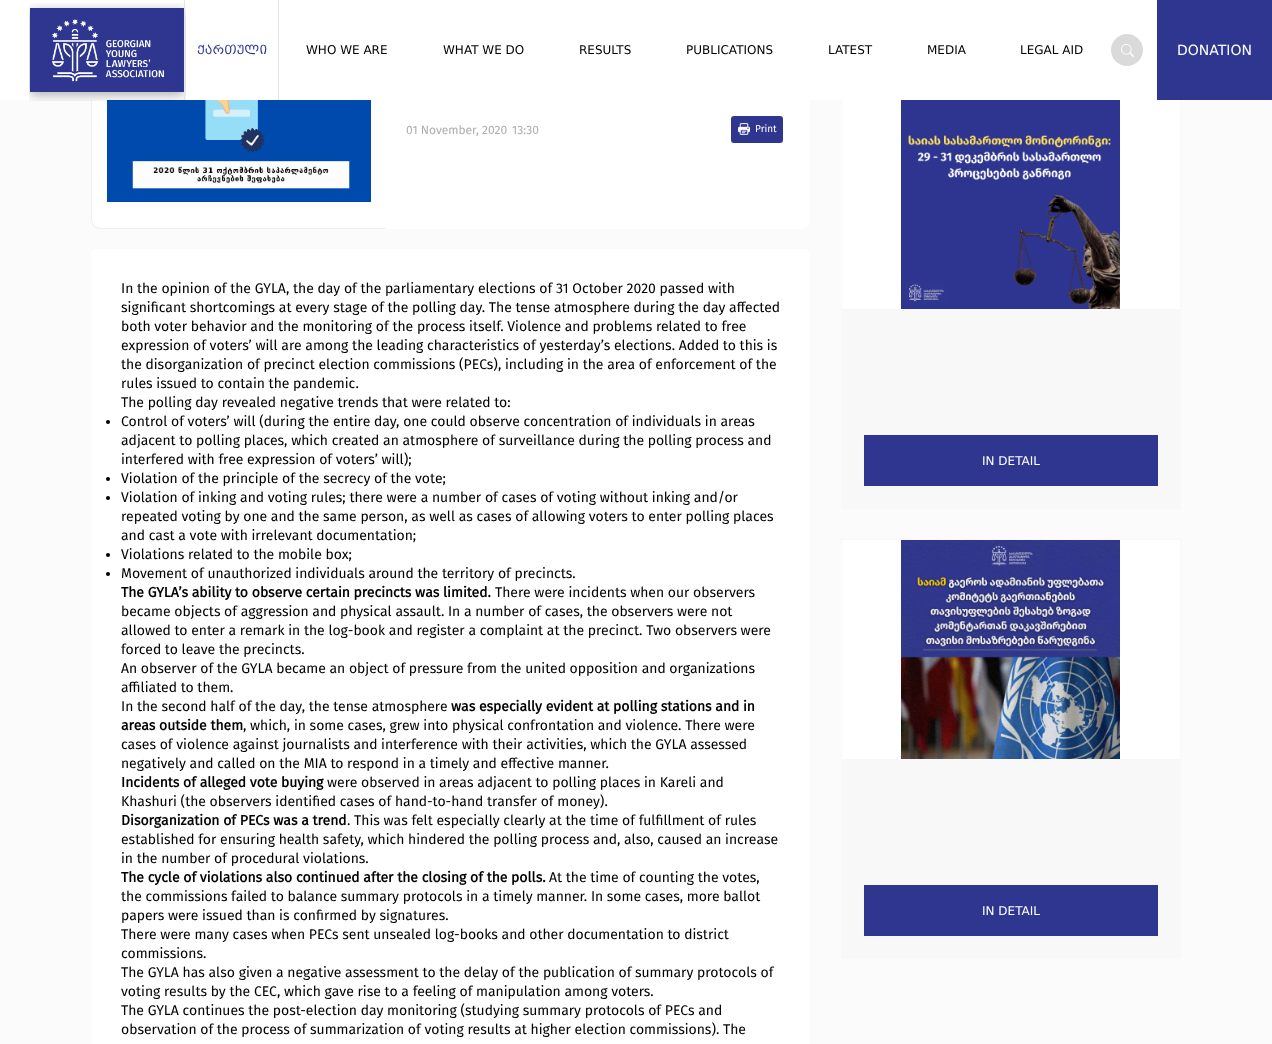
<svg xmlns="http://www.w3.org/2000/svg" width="1272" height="1044">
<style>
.a{font:12px 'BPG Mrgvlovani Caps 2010';fill:#2e3690}
.b{font:12px 'BPG Mrgvlovani Caps 2010';fill:#000}
.c{font:14px 'BPG Mrgvlovani Caps 2010';fill:#fff}
.d{font:12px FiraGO;fill:#aeaeae}
.e{font:10px FiraGO;fill:#fff}
.f{font:14px FiraGO;fill:#000}
.g{font:bold 14px FiraGO;fill:#000}
.h{font:12px 'BPG Mrgvlovani Caps 2010';fill:#fff}
</style>
<rect width="100%" height="100%" fill="#fbfbfb"/>
<path fill="#fff" d="M101 47h285v182h-285c-5.5 0-10-4.5-10-10v-162c0-5.5 4.5-10 10-10z"/>
<path fill="#f1eeee" fill-rule="evenodd" d="M101 47h285v182h-285c-6 0-10-4-10-10v-162c0-6 4-10 10-10zm0 1h285v180h-285c-5 0-9-4-9-9v-162c0-5 4-9 9-9z"/>
<path fill="#fff" d="M386 47h414c5.5 0 10 4.5 10 10v162c0 5.5-4.5 10-10 10h-414z"/>
<path fill="#fff" d="M0 0h1157v100H0z"/>
<image href="3.png" x="107" y="100" width="264" height="102"/>
<image href="1.png" x="29" y="3" width="157" height="98"/>
<path fill="#e5e5e5" d="M278 0h1v100H278z"/>
<path fill="#e5e5e5" d="M184 0h1v100H184z"/>
<circle fill="#dadada" cx="1127" cy="50" r="16"/>
<image href="2.png" x="1121" y="44" width="13" height="13"/>
<path fill="#2e3690" d="M1157 0h115v100H1157z"/>
<rect fill="#2e3690" x="731" y="116" width="52" height="27" rx="3"/>
<image href="4.png" x="738" y="123" width="12" height="12"/>
<rect fill="#fff" x="91" y="249" width="719" height="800" rx="5"/>
<circle fill="#000" cx="108" cy="422" r="2"/>
<circle fill="#000" cx="108" cy="479" r="2"/>
<circle fill="#000" cx="108" cy="498" r="2"/>
<circle fill="#000" cx="108" cy="555" r="2"/>
<circle fill="#000" cx="108" cy="574" r="2"/>
<path fill="#fff" d="M842 100h338v209H842z"/>
<path fill="#f8f8f8" d="M1180 100h1v209H1180z"/>
<path fill="#f8f8f8" d="M841 100h1v209H841z"/>
<image href="5.png" x="901" y="100" width="219" height="209"/>
<path fill="#f8f8f8" d="M841 309h340v200H841z"/>
<path fill="#2e3690" d="M864 435h294v51H864z"/>
<path fill="#fff" d="M842 540h338v219H842z"/>
<path fill="#f8f8f8" d="M841 539h340v1H841z"/>
<path fill="#f8f8f8" d="M1180 539h1v220H1180z"/>
<path fill="#f8f8f8" d="M841 539h1v220H841z"/>
<image href="6.png" x="901" y="540" width="219" height="219"/>
<path fill="#f8f8f8" d="M841 759h340v200H841z"/>
<path fill="#2e3690" d="M864 885h294v51H864z"/>
<text class="a" x="197" y="54">ქართული</text>
<text class="b" x="306" y="54">WHO WE ARE</text>
<text class="b" x="443" y="54">WHAT WE DO</text>
<text class="b" x="579" y="54">RESULTS</text>
<text class="b" x="686" y="54">PUBLICATIONS</text>
<text class="b" x="828" y="54">LATEST</text>
<text class="b" x="927" y="54">MEDIA</text>
<text class="b" x="1020" y="54">LEGAL AID</text>
<text class="c" x="1177" y="55">DONATION</text>
<text class="d" x="406" y="134">01 November</text>
<text class="d" x="476" y="134">, 2020</text>
<text class="d" x="512" y="134">13:30</text>
<text class="e" x="755" y="132">Print</text>
<text class="f" x="121" y="293">In the opinion of the GYLA, the day of the parliamentary elections of 31 October 2020 passed with</text>
<text class="f" x="121" y="312">significant shortcomings at every stage of the polling day. The tense atmosphere during the day affected</text>
<text class="f" x="121" y="331">both voter behavior and the monitoring of the process itself. Violence and problems related to free</text>
<text class="f" x="121" y="350">expression of voters’ will are among the leading characteristics of yesterday’s elections. Added to this is</text>
<text class="f" x="121" y="369">the disorganization of precinct election commissions (PECs), including in the area of enforcement of the</text>
<text class="f" x="121" y="388">rules issued to contain the pandemic.</text>
<text class="f" x="121" y="407">The polling day revealed negative trends that were related to:</text>
<text class="f" x="121" y="426">Control of voters’ will (during the entire day, one could observe concentration of individuals in areas</text>
<text class="f" x="121" y="445">adjacent to polling places, which created an atmosphere of surveillance during the polling process and</text>
<text class="f" x="121" y="464">interfered with free expression of voters’ will);</text>
<text class="f" x="121" y="483">Violation of the principle of the secrecy of the vote;</text>
<text class="f" x="121" y="502">Violation of inking and voting rules; there were a number of cases of voting without inking and/or</text>
<text class="f" x="121" y="521">repeated voting by one and the same person, as well as cases of allowing voters to enter polling places</text>
<text class="f" x="121" y="540">and cast a vote with irrelevant documentation;</text>
<text class="f" x="121" y="559">Violations related to the mobile box;</text>
<text class="f" x="121" y="578">Movement of unauthorized individuals around the territory of precincts.</text>
<text class="g" x="121" y="597">The GYLA’s ability to observe certain precincts was limited.</text>
<text class="f" x="495" y="597">There were incidents when our observers</text>
<text class="f" x="121" y="616">became objects of aggression and physical assault. In a number of cases, the observers were not</text>
<text class="f" x="121" y="635">allowed to enter a remark in the log-book and register a complaint at the precinct. Two observers were</text>
<text class="f" x="121" y="654">forced to leave the precincts.</text>
<text class="f" x="121" y="673">An observer of the GYLA became an object of pressure from the united opposition and organizations</text>
<text class="f" x="121" y="692">affiliated to them.</text>
<text class="f" x="121" y="711">In the second half of the day, the tense atmosphere</text>
<text class="g" x="451" y="711">was especially evident at polling stations and in</text>
<text class="g" x="121" y="730">areas outside them</text>
<text class="f" x="243" y="730">, which, in some cases, grew into physical confrontation and violence. There were</text>
<text class="f" x="121" y="749">cases of violence against journalists and interference with their activities, which the GYLA assessed</text>
<text class="f" x="121" y="768">negatively and called on the MIA to respond in a timely and effective manner.</text>
<text class="g" x="121" y="787">Incidents of alleged vote buying</text>
<text class="f" x="327" y="787">were observed in areas adjacent to polling places in Kareli and</text>
<text class="f" x="121" y="806">Khashuri (the observers identified cases of hand-to-hand transfer of money).</text>
<text class="g" x="121" y="825">Disorganization of PECs was a trend</text>
<text class="f" x="347" y="825">. This was felt especially clearly at the time of fulfillment of rules</text>
<text class="f" x="121" y="844">established for ensuring health safety, which hindered the polling process and, also, caused an increase</text>
<text class="f" x="121" y="863">in the number of procedural violations.</text>
<text class="g" x="121" y="882">The cycle of violations also continued after the closing of the polls.</text>
<text class="f" x="549" y="882">At the time of counting the votes,</text>
<text class="f" x="121" y="901">the commissions failed to balance summary protocols in a timely manner. In some cases, more ballot</text>
<text class="f" x="121" y="920">papers were issued than is confirmed by signatures.</text>
<text class="f" x="121" y="939">There were many cases when PECs sent unsealed log-books and other documentation to district</text>
<text class="f" x="121" y="958">commissions.</text>
<text class="f" x="121" y="977">The GYLA has also given a negative assessment to the delay of the publication of summary protocols of</text>
<text class="f" x="121" y="996">voting results by the CEC, which gave rise to a feeling of manipulation among voters.</text>
<text class="f" x="121" y="1015">The GYLA continues the post-election day monitoring (studying summary protocols of PECs and</text>
<text class="f" x="121" y="1034">observation of the process of summarization of voting results at higher election commissions). The</text>
<text class="h" x="982" y="465">IN DETAIL</text>
<text class="h" x="982" y="915">IN DETAIL</text>
</svg>
